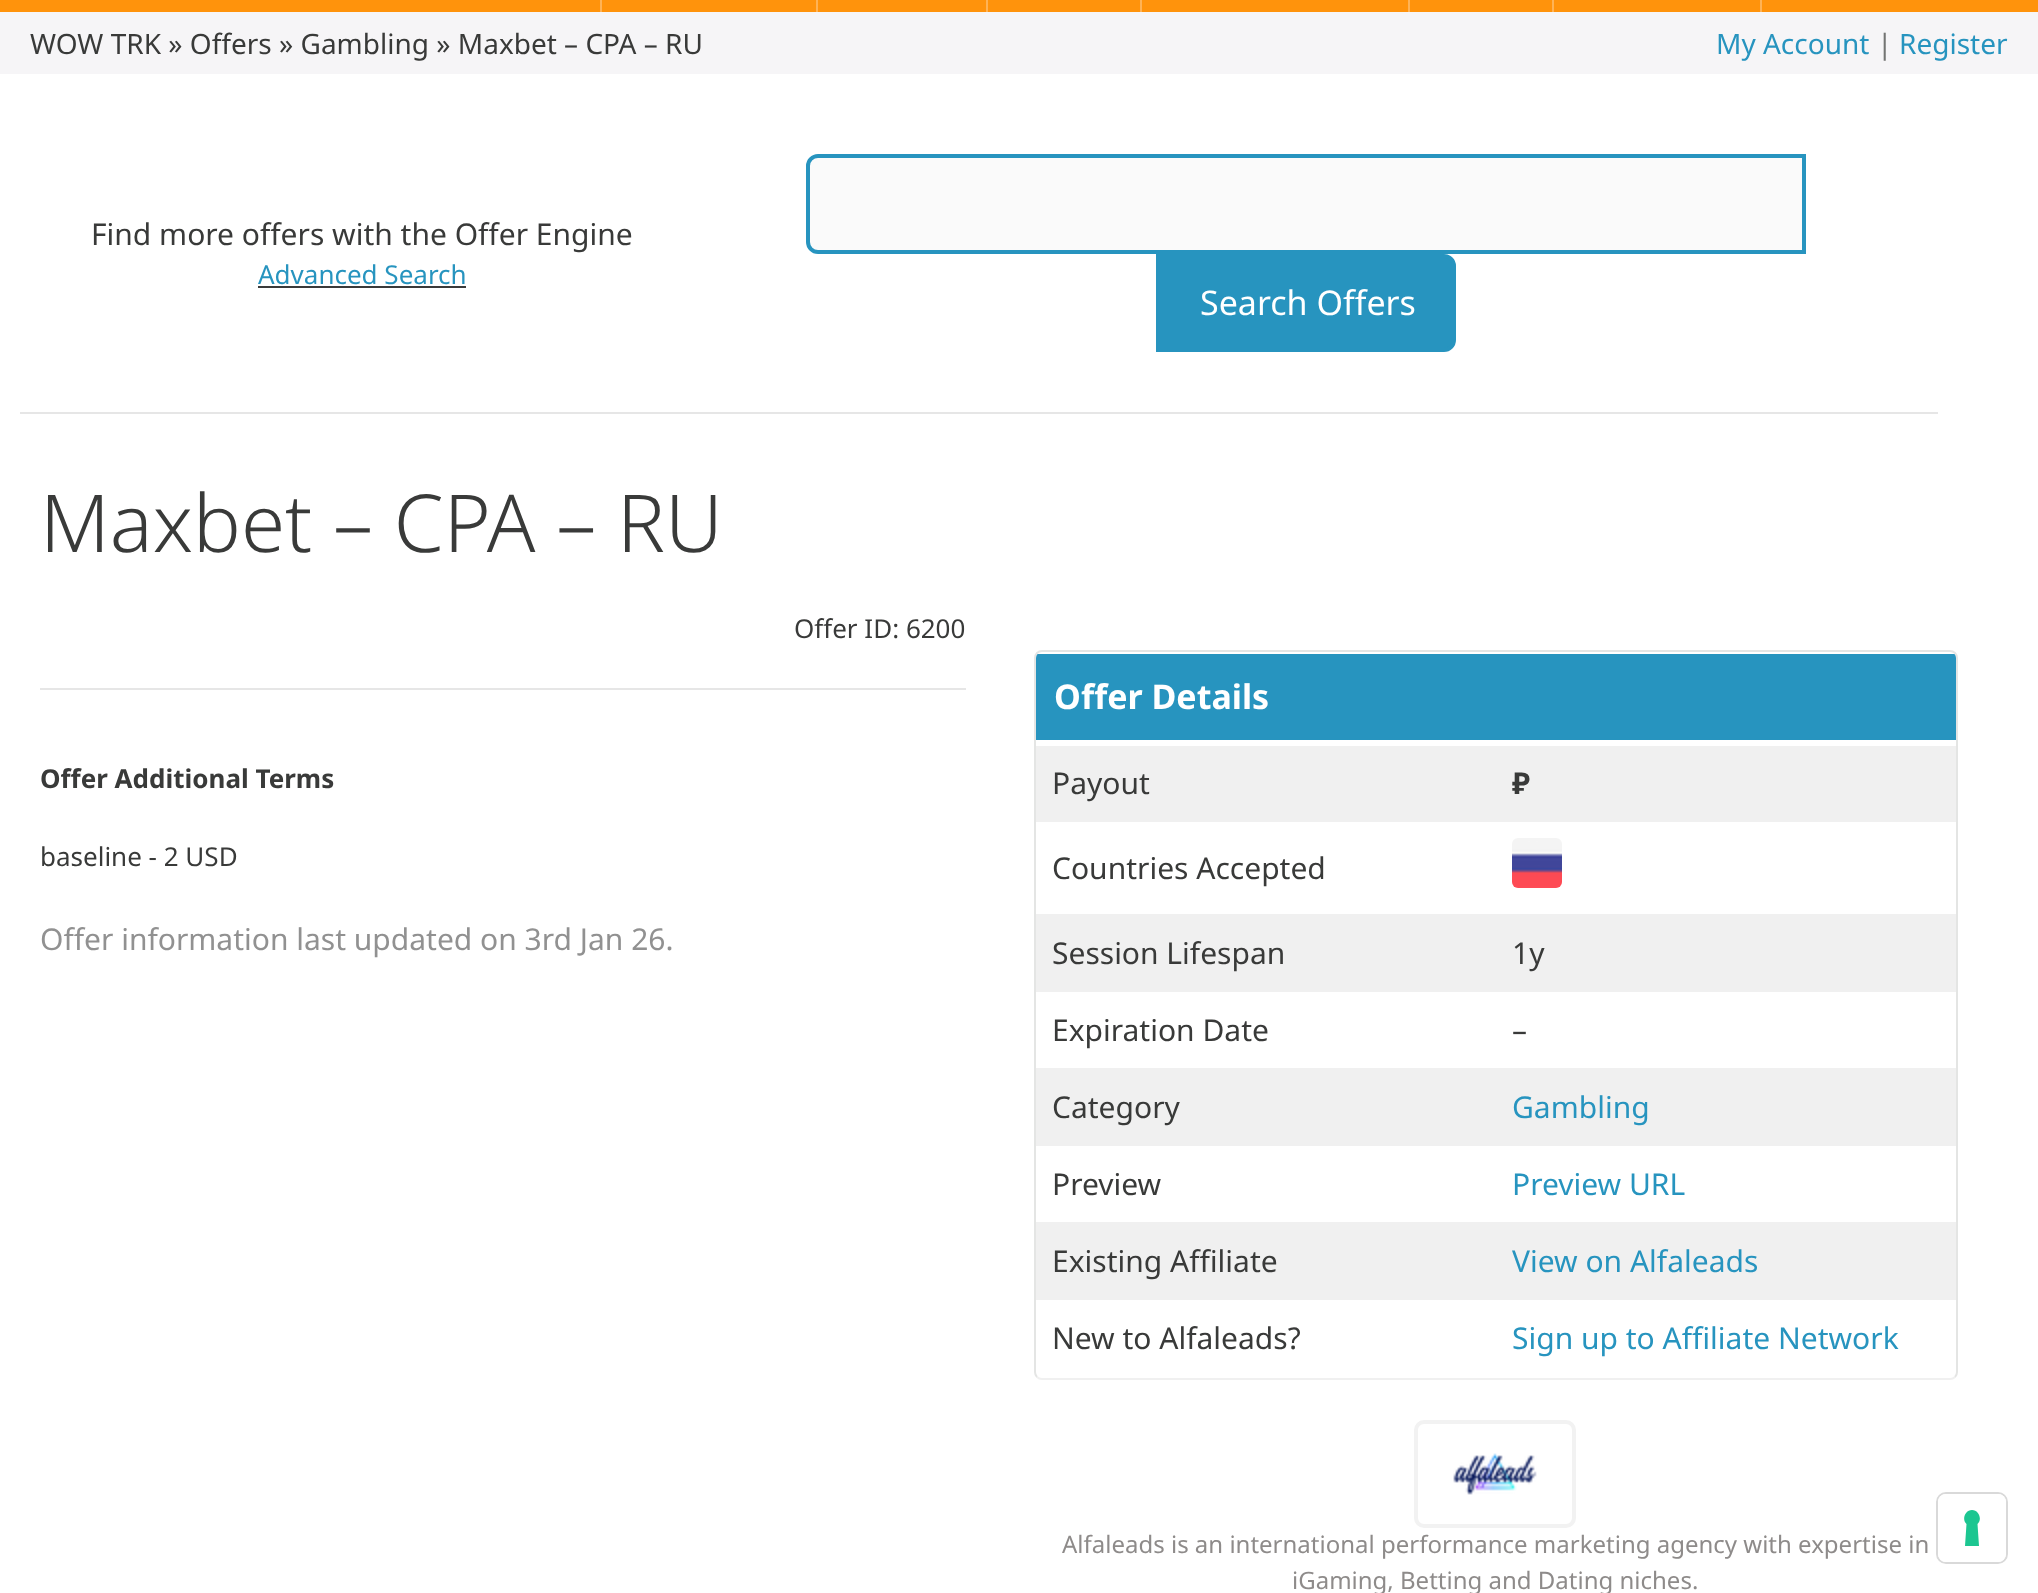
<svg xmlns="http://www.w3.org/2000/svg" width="2038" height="1593">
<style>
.a{font:28px Noto Sans;fill:#393a39}
.b{font:28px Noto Sans;fill:#2794bf}
.c{font:28px Noto Sans;fill:#737473}
.d{font:30px Noto Sans;fill:#393a39}
.e{font:26px Noto Sans;fill:#2794bf}
.f{font:34px Noto Sans;fill:#fff}
.g{font:300 80px Noto Sans;fill:#393a39}
.h{font:26px Noto Sans;fill:#393a39}
.i{font:bold 26px Noto Sans;fill:#393a39}
.j{font:30px Noto Sans;fill:#919191}
.k{font:bold 34px Noto Sans;fill:#fff}
.l{font:bold 30px Noto Sans;fill:#393a39}
.m{font:30px Noto Sans;fill:#2794bf}
.n{font:24px Noto Sans;fill:#8e8b8a}
</style>
<defs>
<clipPath id="clip1"><rect x="1036" y="652" width="920" height="726" rx="6"/></clipPath>
</defs>
<rect width="100%" height="100%" fill="#fff"/>
<path fill="#ff930c" d="M0 0h2038v12H0z"/>
<path fill="#ffb356" d="M600 0h2v12H600z"/>
<path fill="#ffb356" d="M816 0h2v12H816z"/>
<path fill="#ffb356" d="M986 0h2v12H986z"/>
<path fill="#ffb356" d="M1140 0h2v12H1140z"/>
<path fill="#ffb356" d="M1408 0h2v12H1408z"/>
<path fill="#ffb356" d="M1552 0h2v12H1552z"/>
<path fill="#ffb356" d="M1760 0h2v12H1760z"/>
<path fill="#f6f5f7" d="M0 12h2038v62H0z"/>
<path fill="#3a3a3a" d="M258 286h208v2H258z"/>
<path fill="#fafafa" stroke="#2794bf" stroke-width="4" d="M818 156h986v96h-986c-5.5 0-10-4.5-10-10v-76c0-5.5 4.5-10 10-10z"/>
<path fill="#2794bf" stroke="#2794bf" stroke-width="4" d="M1158 256h286c5.5 0 10 4.5 10 10v74c0 5.5-4.5 10-10 10h-286z"/>
<path fill="#e6e6e6" d="M20 412h1918v2H20z"/>
<path fill="#e6e6e6" d="M40 688h926v2H40z"/>
<path fill="none" stroke="#f0f0f0" stroke-width="2" d="M1955 1377c-1.5 1.5-3 2-5 2h-908c-2 0-3.5-.5-5-2"/>
<path fill="none" stroke="#e4e5e4" stroke-width="2" d="M1037 1377c-1.5-1.5-2-3-2-5v-714c0-2 .5-3.5 2-5c1.5-1.5 3-2 5-2h908c2 0 3.5 .5 5 2c1.5 1.5 2 3 2 5v714c0 2-.5 3.5-2 5"/>
<g clip-path="url(#clip1)">
<path fill="#2794bf" d="M1036 654h920v86H1036z"/>
</g>
<path fill="#fff" d="M1036 740h920v2H1036z"/>
<path fill="#f0f0f0" d="M1036 746h920v76H1036z"/>
<image href="1.png" x="1512" y="838" width="50" height="50"/>
<path fill="#f0f0f0" d="M1036 914h920v78H1036z"/>
<path fill="#f0f0f0" d="M1036 1068h920v78H1036z"/>
<path fill="#f0f0f0" d="M1036 1222h920v78H1036z"/>
<rect fill="none" stroke="#f2f2f2" stroke-width="4" x="1416" y="1422" width="158" height="104" rx="8"/>
<image href="2.png" x="1453" y="1453" width="84" height="42"/>
<rect fill="none" stroke="#d9d9d9" stroke-width="2" x="1937" y="1493" width="70" height="70" rx="9"/>
<rect fill="#fff" x="1938" y="1494" width="68" height="68" rx="8"/>
<path fill="#1cc691" fill-rule="evenodd" d="M1972 1510c7 0 10.5 9.5 5.5 14l1.5 22h-14l1.5-22c-5-4.5-1.5-14 5.5-14z"/>
<text class="a" x="30" y="54">WOW TRK » Offers » Gambling » Maxbet – CPA – RU</text>
<text class="b" x="1716" y="54">My Account</text>
<text class="c" x="1877" y="54">|</text>
<text class="b" x="1899" y="54">Register</text>
<text class="d" x="91" y="245">Find more offers with the Offer Engine</text>
<text class="e" x="258" y="284">Advanced Search</text>
<text class="f" x="1200" y="315">Search Offers</text>
<text class="g" x="40" y="552">Maxbet – CPA – RU</text>
<text class="h" x="794" y="638">Offer ID: 6200</text>
<text class="i" x="40" y="788">Offer Additional Terms</text>
<text class="h" x="40" y="866">baseline - 2 USD</text>
<text class="j" x="40" y="950">Offer information last updated on 3rd Jan 26.</text>
<text class="k" x="1054" y="709">Offer Details</text>
<text class="d" x="1052" y="794">Payout</text>
<text class="l" x="1512" y="794">₽</text>
<text class="d" x="1052" y="879">Countries Accepted</text>
<text class="d" x="1052" y="964">Session Lifespan</text>
<text class="d" x="1512" y="964">1y</text>
<text class="d" x="1052" y="1041">Expiration Date</text>
<text class="d" x="1512" y="1041">–</text>
<text class="d" x="1052" y="1118">Category</text>
<text class="m" x="1512" y="1118">Gambling</text>
<text class="d" x="1052" y="1195">Preview</text>
<text class="m" x="1512" y="1195">Preview URL</text>
<text class="d" x="1052" y="1272">Existing Affiliate</text>
<text class="m" x="1512" y="1272">View on Alfaleads</text>
<text class="d" x="1052" y="1349">New to Alfaleads?</text>
<text class="m" x="1512" y="1349">Sign up to Affiliate Network</text>
<text class="n" x="1062" y="1553">Alfaleads is an international performance marketing agency with expertise in</text>
<text class="n" x="1292" y="1589">iGaming, Betting and Dating niches.</text>
</svg>
